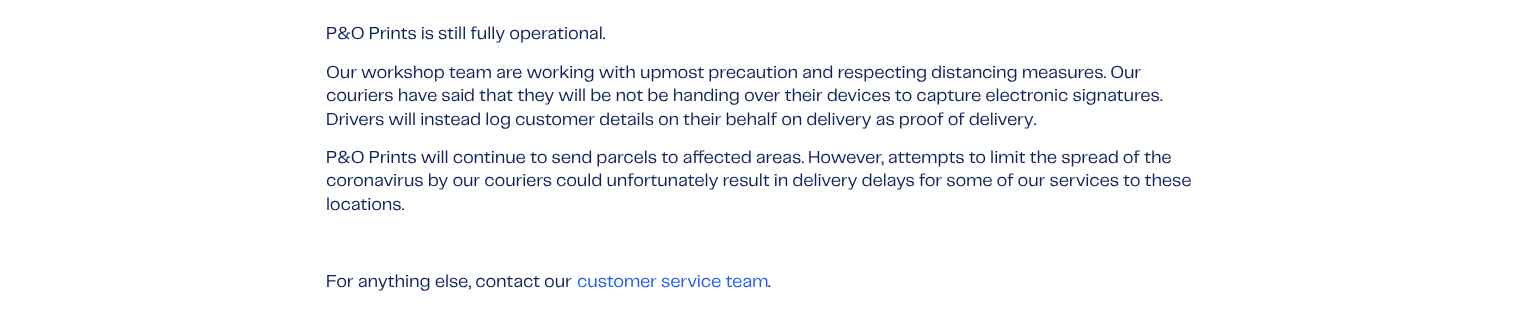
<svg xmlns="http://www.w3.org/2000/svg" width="1519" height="334">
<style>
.a{font:18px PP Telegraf;fill:#0f205a}
.b{font:18px PP Telegraf;fill:#2059ff}
</style>
<rect width="100%" height="100%" fill="#fff"/>
<text class="a" x="326" y="39">P&amp;O Prints is still fully operational.</text>
<text class="a" x="326" y="78">Our workshop team are working with upmost precaution and respecting distancing measures. Our</text>
<text class="a" x="326" y="101">couriers have said that they will be not be handing over their devices to capture electronic signatures.</text>
<text class="a" x="326" y="125">Drivers will instead log customer details on their behalf on delivery as proof of delivery.</text>
<text class="a" x="326" y="163">P&amp;O Prints will continue to send parcels to affected areas. However, attempts to limit the spread of the</text>
<text class="a" x="326" y="186">coronavirus by our couriers could unfortunately result in delivery delays for some of our services to these</text>
<text class="a" x="326" y="210">locations.</text>
<text class="a" x="326" y="287">For anything else, contact our</text>
<text class="b" x="577" y="287">customer service team</text>
<text class="a" x="768" y="287">.</text>
</svg>
